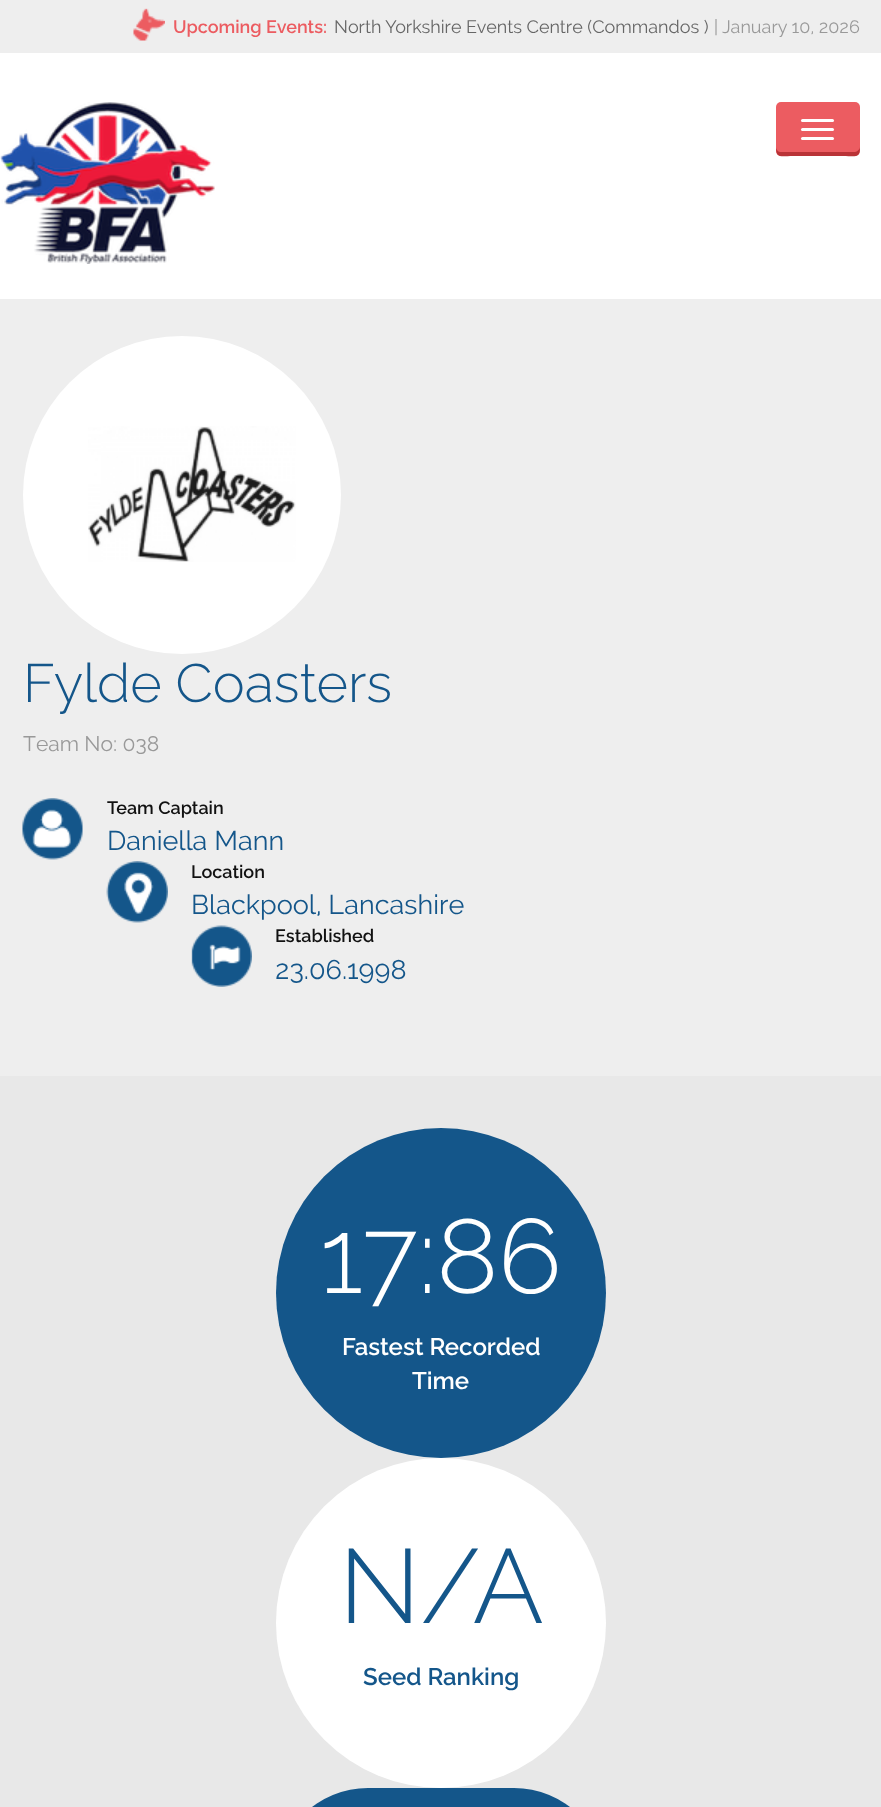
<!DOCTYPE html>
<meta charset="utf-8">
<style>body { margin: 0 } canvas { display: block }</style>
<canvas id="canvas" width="881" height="1807"></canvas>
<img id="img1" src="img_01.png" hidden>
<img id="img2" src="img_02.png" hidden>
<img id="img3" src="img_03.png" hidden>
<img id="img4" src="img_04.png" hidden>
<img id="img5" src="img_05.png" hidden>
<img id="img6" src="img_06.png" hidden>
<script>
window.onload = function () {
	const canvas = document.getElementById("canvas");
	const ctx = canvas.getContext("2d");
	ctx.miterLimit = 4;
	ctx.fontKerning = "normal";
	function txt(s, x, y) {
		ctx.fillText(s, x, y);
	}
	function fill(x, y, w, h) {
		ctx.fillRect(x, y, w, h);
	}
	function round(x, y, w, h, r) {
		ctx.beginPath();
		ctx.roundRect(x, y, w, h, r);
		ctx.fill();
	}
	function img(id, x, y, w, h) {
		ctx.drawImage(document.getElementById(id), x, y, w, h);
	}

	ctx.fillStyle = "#FFFFFF";
	fill(0, 0, 881, 1807);
	ctx.fillStyle = "#EEEEEE";
	fill(0, 0, 881, 53);
	img("img1", 133, 8, 32, 33);
	img("img2", 0, 102, 215, 162);
	ctx.fillStyle = "#EC5C61";
	round(776, 102, 84, 54, 5);
	ctx.fillStyle = "#B93337";
	ctx.beginPath();
	ctx.moveTo(776, 147);
	ctx.bezierCurveTo(776, 159, 781, 156, 793, 156);
	ctx.lineTo(843, 156);
	ctx.bezierCurveTo(855, 156, 860, 159, 860, 147);
	ctx.bezierCurveTo(860, 149, 857, 152, 855, 152);
	ctx.lineTo(780, 152);
	ctx.bezierCurveTo(778, 152, 776, 149, 776, 147);
	ctx.closePath();
	ctx.fill();
	ctx.fillStyle = "#FFFFFF";
	round(801, 119, 33, 3, 1.5);
	round(801, 128, 33, 3, 1.5);
	round(801, 137, 33, 3, 1.5);
	ctx.fillStyle = "#EEEEEE";
	fill(0, 299, 881, 777);
	ctx.fillStyle = "#FFFFFF";
	ctx.beginPath();
	ctx.arc(182, 495, 159, 0, Math.PI * 2);
	ctx.fill();
	img("img3", 88, 426, 208, 136);
	img("img4", 22, 798, 61, 62);
	img("img5", 106, 861, 62, 62);
	img("img6", 191, 925, 61, 62);
	ctx.fillStyle = "#E8E8E8";
	fill(0, 1076, 881, 731);
	ctx.fillStyle = "#14568A";
	ctx.beginPath();
	ctx.arc(441, 1293, 165, 0, Math.PI * 2);
	ctx.fill();
	ctx.fillStyle = "#FFFFFF";
	ctx.beginPath();
	ctx.arc(441, 1623, 165, 0, Math.PI * 2);
	ctx.fill();
	ctx.fillStyle = "#14568A";
	round(276, 1788, 330, 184, 165);
	ctx.font = "600 18px Raleway";
	ctx.fillStyle = "#EC5C61";
	txt("Upcoming Events:", 173, 33);
	ctx.font = "18px Raleway";
	ctx.fillStyle = "#666666";
	txt("North Yorkshire Events Centre (Commandos )", 334, 33);
	ctx.fillStyle = "#999999";
	txt("|", 714, 33);
	txt("January 10, 2026", 722, 33);
	ctx.font = "300 54px Raleway";
	ctx.fillStyle = "#14568A";
	txt("Fylde Coasters", 23, 702);
	ctx.font = "21px Raleway";
	ctx.fillStyle = "#999999";
	txt("Team No: 038", 23, 751);
	ctx.font = "600 18px Raleway";
	ctx.fillStyle = "#111111";
	txt("Team Captain", 107, 814);
	ctx.font = "27px Raleway";
	ctx.fillStyle = "#14568A";
	txt("Daniella Mann", 107, 850);
	ctx.font = "600 18px Raleway";
	ctx.fillStyle = "#111111";
	txt("Location", 191, 878);
	ctx.font = "27px Raleway";
	ctx.fillStyle = "#14568A";
	txt("Blackpool, Lancashire", 191, 914);
	ctx.font = "600 18px Raleway";
	ctx.fillStyle = "#111111";
	txt("Established", 275, 942);
	ctx.font = "27px Raleway";
	ctx.fillStyle = "#14568A";
	txt("23.06.1998", 275, 979);
	ctx.font = "300 105px Raleway";
	ctx.fillStyle = "#FFFFFF";
	txt("17:86", 320, 1293);
	ctx.font = "600 24px Raleway";
	txt("Fastest Recorded", 342, 1355);
	txt("Time", 412, 1389);
	ctx.font = "300 105px Raleway";
	ctx.fillStyle = "#14568A";
	txt("N/A", 339, 1623);
	ctx.font = "600 24px Raleway";
	txt("Seed Ranking", 363, 1685);
};
</script>
